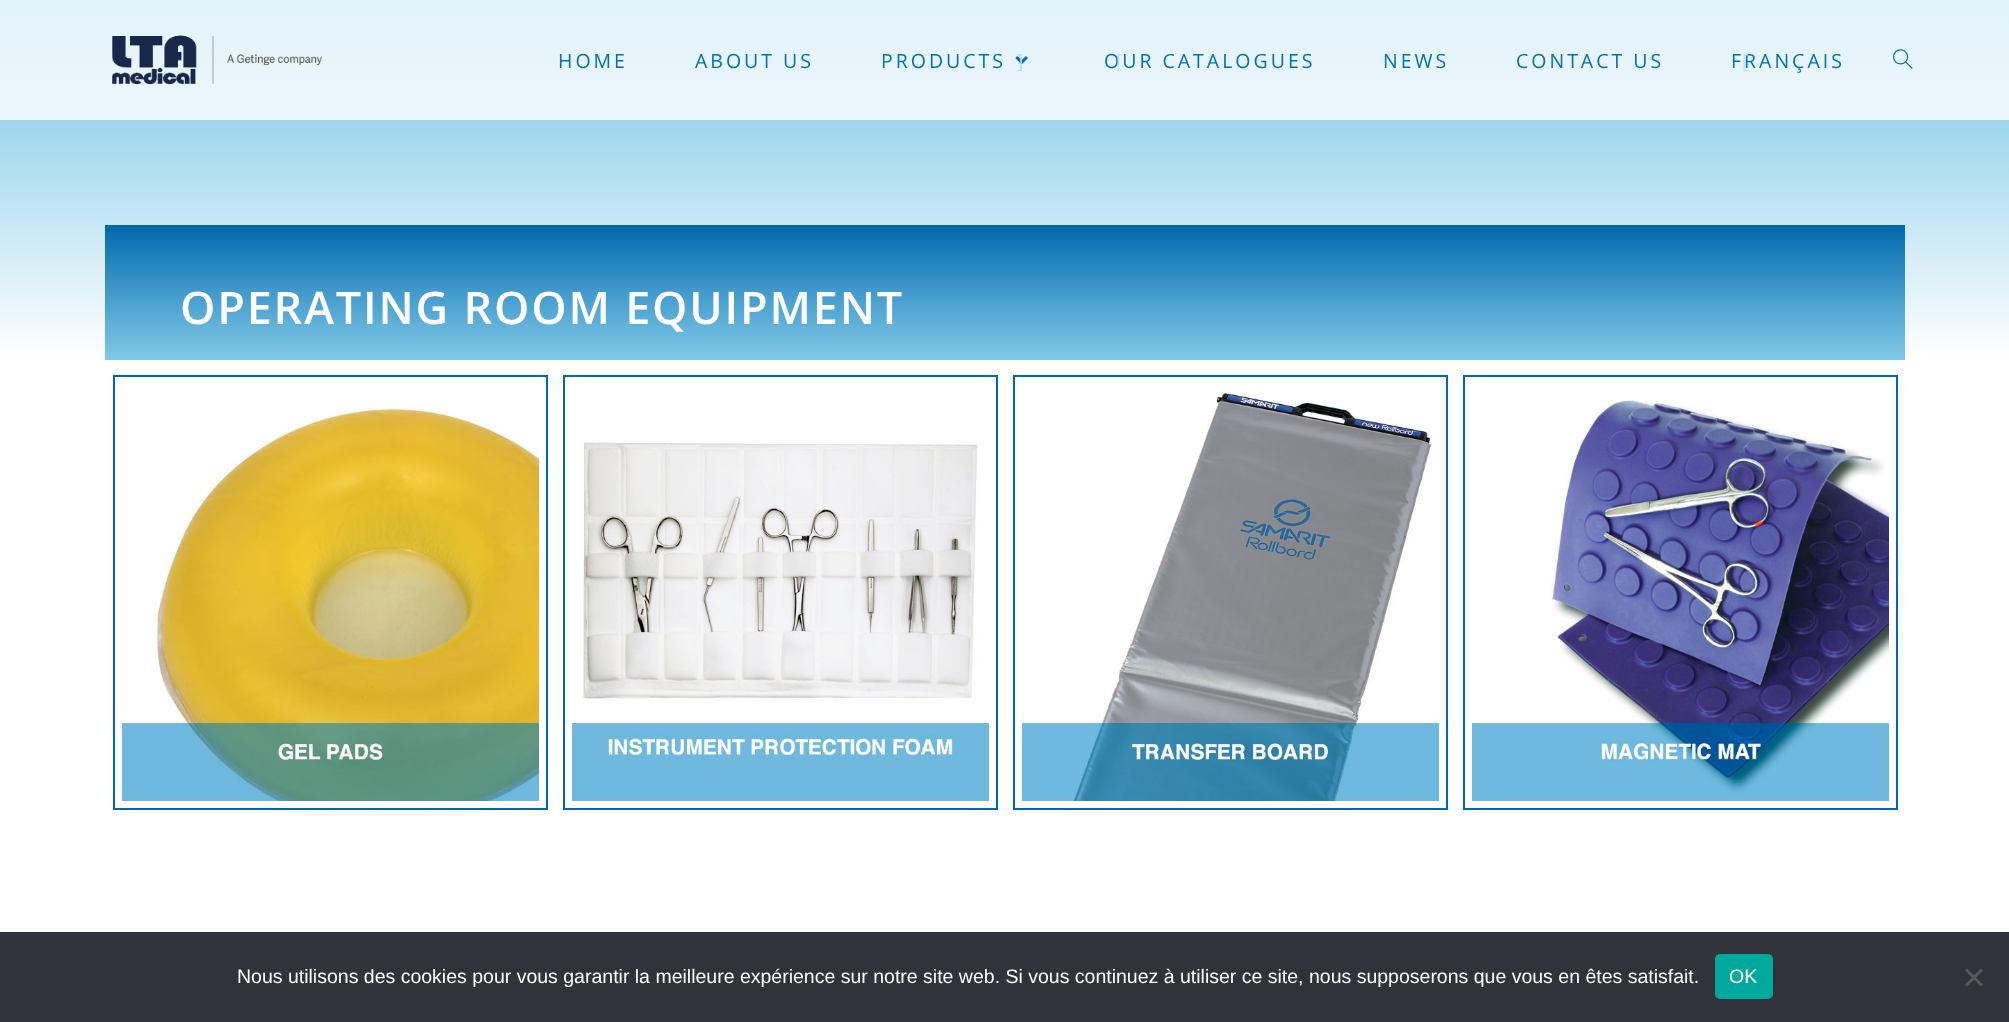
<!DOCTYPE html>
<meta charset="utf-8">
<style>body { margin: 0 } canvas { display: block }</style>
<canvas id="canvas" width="2009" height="1022"></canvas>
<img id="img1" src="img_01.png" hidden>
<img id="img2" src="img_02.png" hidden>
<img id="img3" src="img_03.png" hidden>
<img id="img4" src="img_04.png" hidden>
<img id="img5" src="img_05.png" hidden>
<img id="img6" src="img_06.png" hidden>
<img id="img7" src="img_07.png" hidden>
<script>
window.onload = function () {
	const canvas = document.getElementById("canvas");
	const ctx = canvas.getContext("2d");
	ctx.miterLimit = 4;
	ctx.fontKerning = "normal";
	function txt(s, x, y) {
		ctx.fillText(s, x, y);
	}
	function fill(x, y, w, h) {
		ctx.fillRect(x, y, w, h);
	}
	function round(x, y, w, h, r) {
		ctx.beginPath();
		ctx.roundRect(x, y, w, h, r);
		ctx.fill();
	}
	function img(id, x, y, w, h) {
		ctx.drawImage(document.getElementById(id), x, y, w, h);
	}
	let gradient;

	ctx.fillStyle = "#FFFFFF";
	fill(0, 0, 2009, 1022);
	gradient = ctx.createLinearGradient(1005, 0, 1005, 360);
	gradient.addColorStop(0, "#E2F3FA");
	gradient.addColorStop(1, "#FFFFFF");
	ctx.fillStyle = gradient;
	fill(0, 0, 2009, 120);
	img("img1", 112, 35, 210, 50);
	img("img2", 1015, 56, 13, 9);
	img("img3", 1892, 49, 21, 20);
	gradient = ctx.createLinearGradient(1005, 0, 1005, 360);
	gradient.addColorStop(0, "#6EC1E4");
	gradient.addColorStop(1, "#FFFFFF");
	ctx.fillStyle = gradient;
	fill(0, 120, 2009, 234);
	gradient = ctx.createLinearGradient(1005, 225, 1005, 360);
	gradient.addColorStop(0, "#0068AD");
	gradient.addColorStop(1, "rgba(110, 193, 228, 0.87)");
	ctx.fillStyle = gradient;
	fill(105, 225, 1800, 135);
	ctx.strokeStyle = "#0069AE";
	ctx.lineWidth = 2;
	ctx.strokeRect(114, 376, 433, 433);
	img("img4", 122, 384, 417, 417);
	ctx.strokeRect(564, 376, 433, 433);
	img("img5", 572, 384, 417, 417);
	ctx.strokeRect(1014, 376, 433, 433);
	img("img6", 1022, 384, 417, 417);
	ctx.strokeRect(1464, 376, 433, 433);
	img("img7", 1472, 384, 417, 417);
	ctx.fillStyle = "#32323A";
	fill(0, 932, 2009, 90);
	ctx.fillStyle = "#00A99D";
	round(1715, 954, 58, 45, 5);
	ctx.fillStyle = "#59595D";
	ctx.beginPath();
	ctx.moveTo(1981, 968.5);
	ctx.lineTo(1983, 970.5);
	ctx.lineTo(1967, 986.5);
	ctx.lineTo(1965, 984.5);
	ctx.closePath();
	ctx.fill();
	ctx.beginPath();
	ctx.moveTo(1965, 970.5);
	ctx.lineTo(1967, 968.5);
	ctx.lineTo(1983, 984.5);
	ctx.lineTo(1981, 986.5);
	ctx.closePath();
	ctx.fill();
	ctx.letterSpacing = "3px";
	ctx.font = "19.5px Open Sans";
	ctx.fillStyle = "#0071B4";
	txt("HOME", 558, 68);
	txt("ABOUT US", 695, 68);
	txt("PRODUCTS", 881, 68);
	ctx.fillStyle = "#B9DBED";
	txt("]", 1017, 68);
	ctx.fillStyle = "#0071B4";
	txt("OUR CATALOGUES", 1104, 68);
	ctx.fillStyle = "#C5E1F0";
	txt("[", 1116, 68);
	ctx.fillStyle = "#0071B4";
	txt("NEWS", 1383, 68);
	txt("CONTACT US", 1516, 68);
	txt("FRANÇAIS", 1731, 68);
	ctx.fillStyle = "#C5E1F0";
	txt("[", 1742, 68);
	ctx.letterSpacing = "1.8px";
	ctx.font = "600 45px Open Sans";
	ctx.fillStyle = "#FFFFFF";
	txt("OPERATING ROOM EQUIPMENT", 180, 324);
	ctx.letterSpacing = "0px";
	ctx.font = "19.5px Liberation Sans";
	txt("Nous utilisons des cookies pour vous garantir la meilleure expérience sur notre site web. Si vous continuez à utiliser ce site, nous supposerons que vous en êtes satisfait.", 237, 983);
	txt("OK", 1729, 983);
};
</script>
